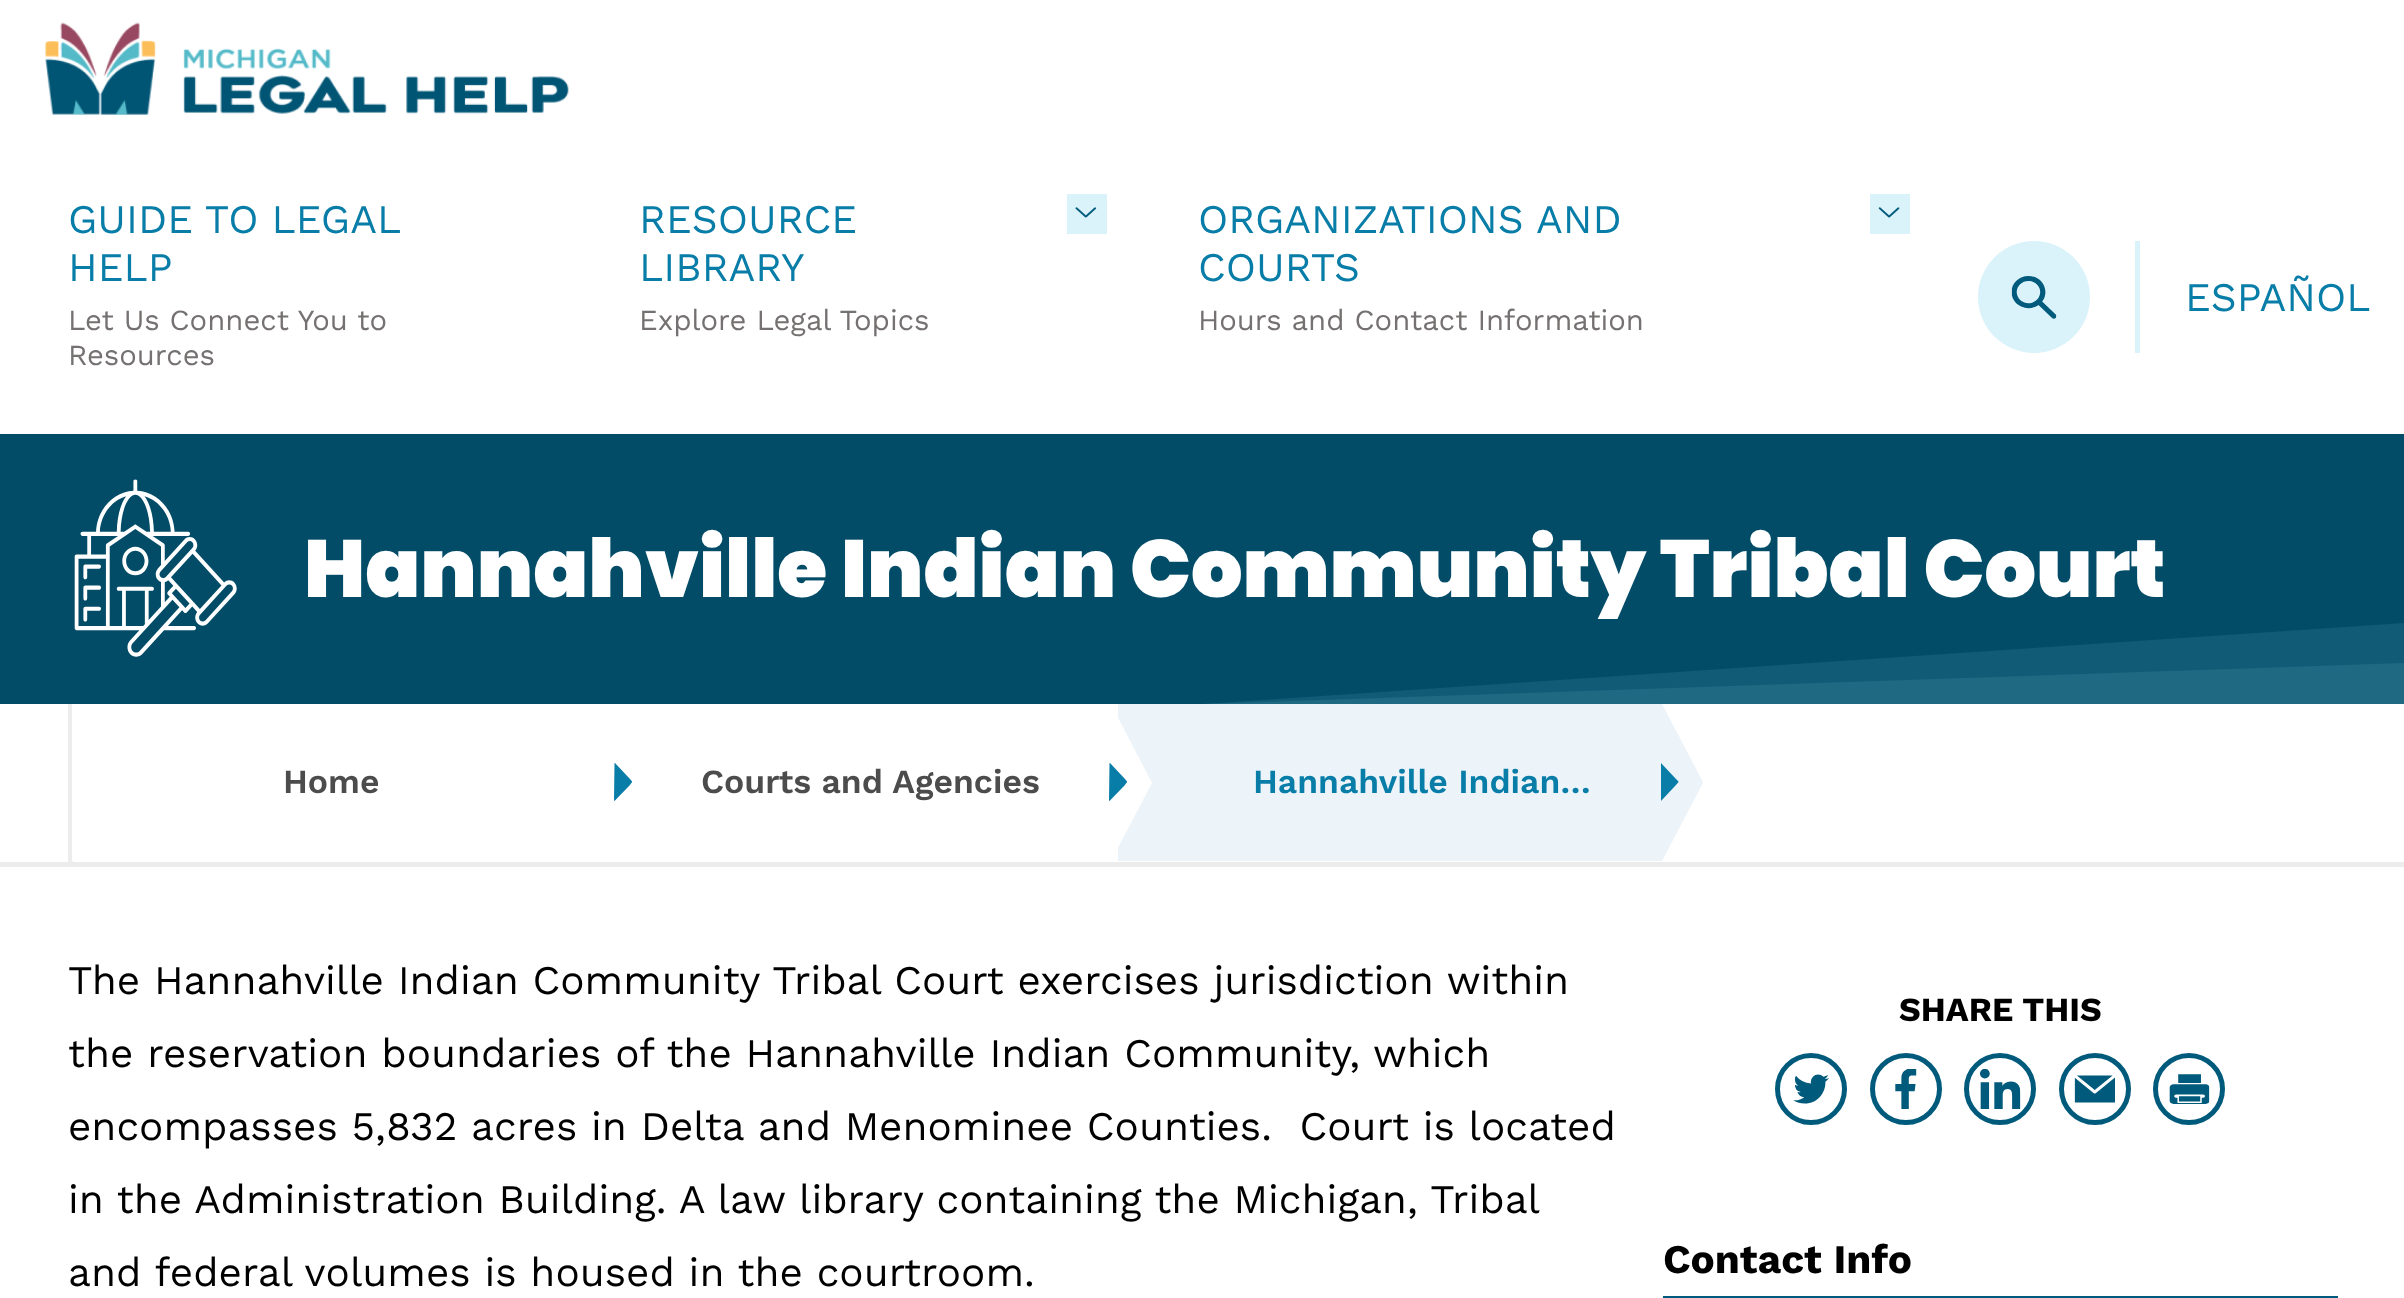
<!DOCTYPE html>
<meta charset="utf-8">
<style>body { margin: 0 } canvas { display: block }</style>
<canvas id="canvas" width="2404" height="1298"></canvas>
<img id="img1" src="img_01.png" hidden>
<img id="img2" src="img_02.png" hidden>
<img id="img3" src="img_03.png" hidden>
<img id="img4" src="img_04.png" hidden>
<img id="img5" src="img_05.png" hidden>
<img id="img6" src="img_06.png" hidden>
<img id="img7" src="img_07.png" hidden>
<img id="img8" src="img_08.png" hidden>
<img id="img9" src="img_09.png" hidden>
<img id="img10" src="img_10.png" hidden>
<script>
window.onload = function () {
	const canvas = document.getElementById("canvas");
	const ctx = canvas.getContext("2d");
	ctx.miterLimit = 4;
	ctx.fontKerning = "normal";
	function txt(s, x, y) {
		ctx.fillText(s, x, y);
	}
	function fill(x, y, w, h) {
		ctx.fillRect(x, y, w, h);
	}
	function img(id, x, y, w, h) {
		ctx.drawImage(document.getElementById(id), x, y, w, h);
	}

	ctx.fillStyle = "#FFFFFF";
	fill(0, 0, 2404, 1298);
	img("img1", 45, 22, 524, 93);
	ctx.fillStyle = "#DAF2FA";
	fill(1067, 194, 40, 40);
	img("img2", 1075, 207, 22, 11);
	fill(1870, 194, 40, 40);
	img("img3", 1878, 207, 22, 11);
	ctx.beginPath();
	ctx.arc(2034, 297, 56, 0, Math.PI * 2);
	ctx.fill();
	img("img4", 2011, 276, 46, 43);
	fill(2135, 241, 5, 112);
	ctx.fillStyle = "#034C68";
	fill(0, 434, 2404, 270);
	img("img5", 74, 479, 163, 178);
	ctx.fillStyle = "#125B76";
	ctx.beginPath();
	ctx.moveTo(1203, 704);
	ctx.lineTo(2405, 623);
	ctx.lineTo(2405, 704);
	ctx.closePath();
	ctx.fill();
	ctx.fillStyle = "#206983";
	ctx.beginPath();
	ctx.moveTo(1203, 704);
	ctx.lineTo(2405, 663);
	ctx.lineTo(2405, 704);
	ctx.closePath();
	ctx.fill();
	ctx.fillStyle = "#ECECEC";
	fill(0, 862, 2404, 5);
	fill(68, 704, 5, 158);
	ctx.fillStyle = "#ECF4F9";
	ctx.beginPath();
	ctx.moveTo(1703, 783);
	ctx.lineTo(1662, 861);
	ctx.lineTo(1118, 861);
	ctx.lineTo(1118, 704);
	ctx.lineTo(1662, 704);
	ctx.lineTo(1703, 782);
	ctx.closePath();
	ctx.fill();
	ctx.fillStyle = "#FFFFFF";
	ctx.beginPath();
	ctx.moveTo(567, 704);
	ctx.lineTo(567, 861);
	ctx.lineTo(1111, 861);
	ctx.lineTo(1152, 783);
	ctx.lineTo(1111, 704);
	ctx.closePath();
	ctx.fill();
	ctx.beginPath();
	ctx.moveTo(72, 704);
	ctx.lineTo(72, 861);
	ctx.lineTo(616, 861);
	ctx.lineTo(657, 783);
	ctx.lineTo(616, 704);
	ctx.closePath();
	ctx.fill();
	ctx.fillStyle = "#087DA8";
	ctx.beginPath();
	ctx.moveTo(614, 800.5);
	ctx.lineTo(614.5, 801);
	ctx.lineTo(629.5, 785.5);
	ctx.bezierCurveTo(633, 781, 633, 782.5, 629.5, 778.5);
	ctx.lineTo(615, 763);
	ctx.lineTo(614.5, 763);
	ctx.closePath();
	ctx.fill();
	ctx.beginPath();
	ctx.moveTo(1109, 800.5);
	ctx.lineTo(1109.5, 801);
	ctx.lineTo(1124.5, 785.5);
	ctx.bezierCurveTo(1128, 781, 1128, 782.5, 1124.5, 778.5);
	ctx.lineTo(1110, 763);
	ctx.lineTo(1109.5, 763);
	ctx.closePath();
	ctx.fill();
	ctx.save();
	ctx.beginPath();
	ctx.rect(1661, 763, 18, 38);
	ctx.clip();
	ctx.beginPath();
	ctx.moveTo(1660.5, 800.5);
	ctx.lineTo(1661, 801);
	ctx.lineTo(1675.5, 785.5);
	ctx.bezierCurveTo(1679.5, 781, 1679.5, 782.5, 1675.5, 778.5);
	ctx.lineTo(1661, 763);
	ctx.lineTo(1660.5, 763);
	ctx.closePath();
	ctx.fill();
	ctx.restore();
	ctx.beginPath();
	ctx.arc(1811, 1089, 33.5, 0, Math.PI * 2);
	ctx.strokeStyle = "#005A7C";
	ctx.lineWidth = 5;
	ctx.stroke();
	img("img6", 1793, 1074, 36, 30);
	ctx.beginPath();
	ctx.arc(1906, 1089, 33.5, 0, Math.PI * 2);
	ctx.stroke();
	img("img7", 1895, 1069, 22, 40);
	ctx.beginPath();
	ctx.arc(2000, 1089, 33.5, 0, Math.PI * 2);
	ctx.stroke();
	img("img8", 1980, 1069, 41, 40);
	ctx.beginPath();
	ctx.arc(2095, 1089, 33.5, 0, Math.PI * 2);
	ctx.stroke();
	img("img9", 2074, 1075, 41, 28);
	ctx.beginPath();
	ctx.arc(2189, 1089, 33.5, 0, Math.PI * 2);
	ctx.stroke();
	img("img10", 2169, 1074, 41, 30);
	ctx.fillStyle = "#005A7C";
	fill(1663, 1296, 675, 2);
	ctx.wordSpacing = "-1px";
	ctx.font = "40.5px Work Sans";
	ctx.fillStyle = "#087DA8";
	txt("GUIDE TO LEGAL", 68, 233);
	ctx.wordSpacing = "0px";
	txt("HELP", 68, 281);
	ctx.font = "29.25px Work Sans";
	ctx.fillStyle = "#757171";
	txt("Let Us Connect You to", 68, 330);
	txt("Resources", 68, 365);
	ctx.font = "40.5px Work Sans";
	ctx.fillStyle = "#087DA8";
	txt("RESOURCE", 639, 233);
	txt("LIBRARY", 639, 281);
	ctx.font = "29.25px Work Sans";
	ctx.fillStyle = "#757171";
	txt("Explore Legal Topics", 639, 330);
	ctx.font = "40.5px Work Sans";
	ctx.fillStyle = "#087DA8";
	txt("ORGANIZATIONS AND", 1198, 233);
	txt("COURTS", 1198, 281);
	ctx.font = "29.25px Work Sans";
	ctx.fillStyle = "#757171";
	txt("Hours and Contact Information", 1198, 330);
	ctx.font = "40.5px Work Sans";
	ctx.fillStyle = "#087DA8";
	txt("ESPAÑOL", 2185, 311);
	ctx.font = "900 81px Poppins";
	ctx.fillStyle = "#FFFFFF";
	txt("Hannahville Indian Community Tribal Court", 304, 597);
	ctx.font = "600 33.75px Work Sans";
	ctx.fillStyle = "#4C4C4C";
	txt("Home", 283, 793);
	txt("Courts and Agencies", 701, 793);
	ctx.fillStyle = "#087DA8";
	txt("Hannahville Indian…", 1253, 793);
	ctx.font = "40.5px Work Sans";
	ctx.fillStyle = "#000000";
	txt("The Hannahville Indian Community Tribal Court exercises jurisdiction within", 68, 994);
	txt("the reservation boundaries of the Hannahville Indian Community, which", 68, 1067);
	txt("encompasses 5,832 acres in Delta and Menominee Counties.  Court is located", 68, 1140);
	ctx.wordSpacing = "-0.1px";
	txt("in the Administration Building. A law library containing the Michigan, Tribal", 68, 1213);
	ctx.wordSpacing = "0px";
	txt("and federal volumes is housed in the courtroom.", 68, 1286);
	ctx.font = "bold 33.75px Work Sans";
	txt("SHARE THIS", 1899, 1021);
	ctx.font = "bold 40.5px Work Sans";
	txt("Contact Info", 1663, 1273);
};
</script>
